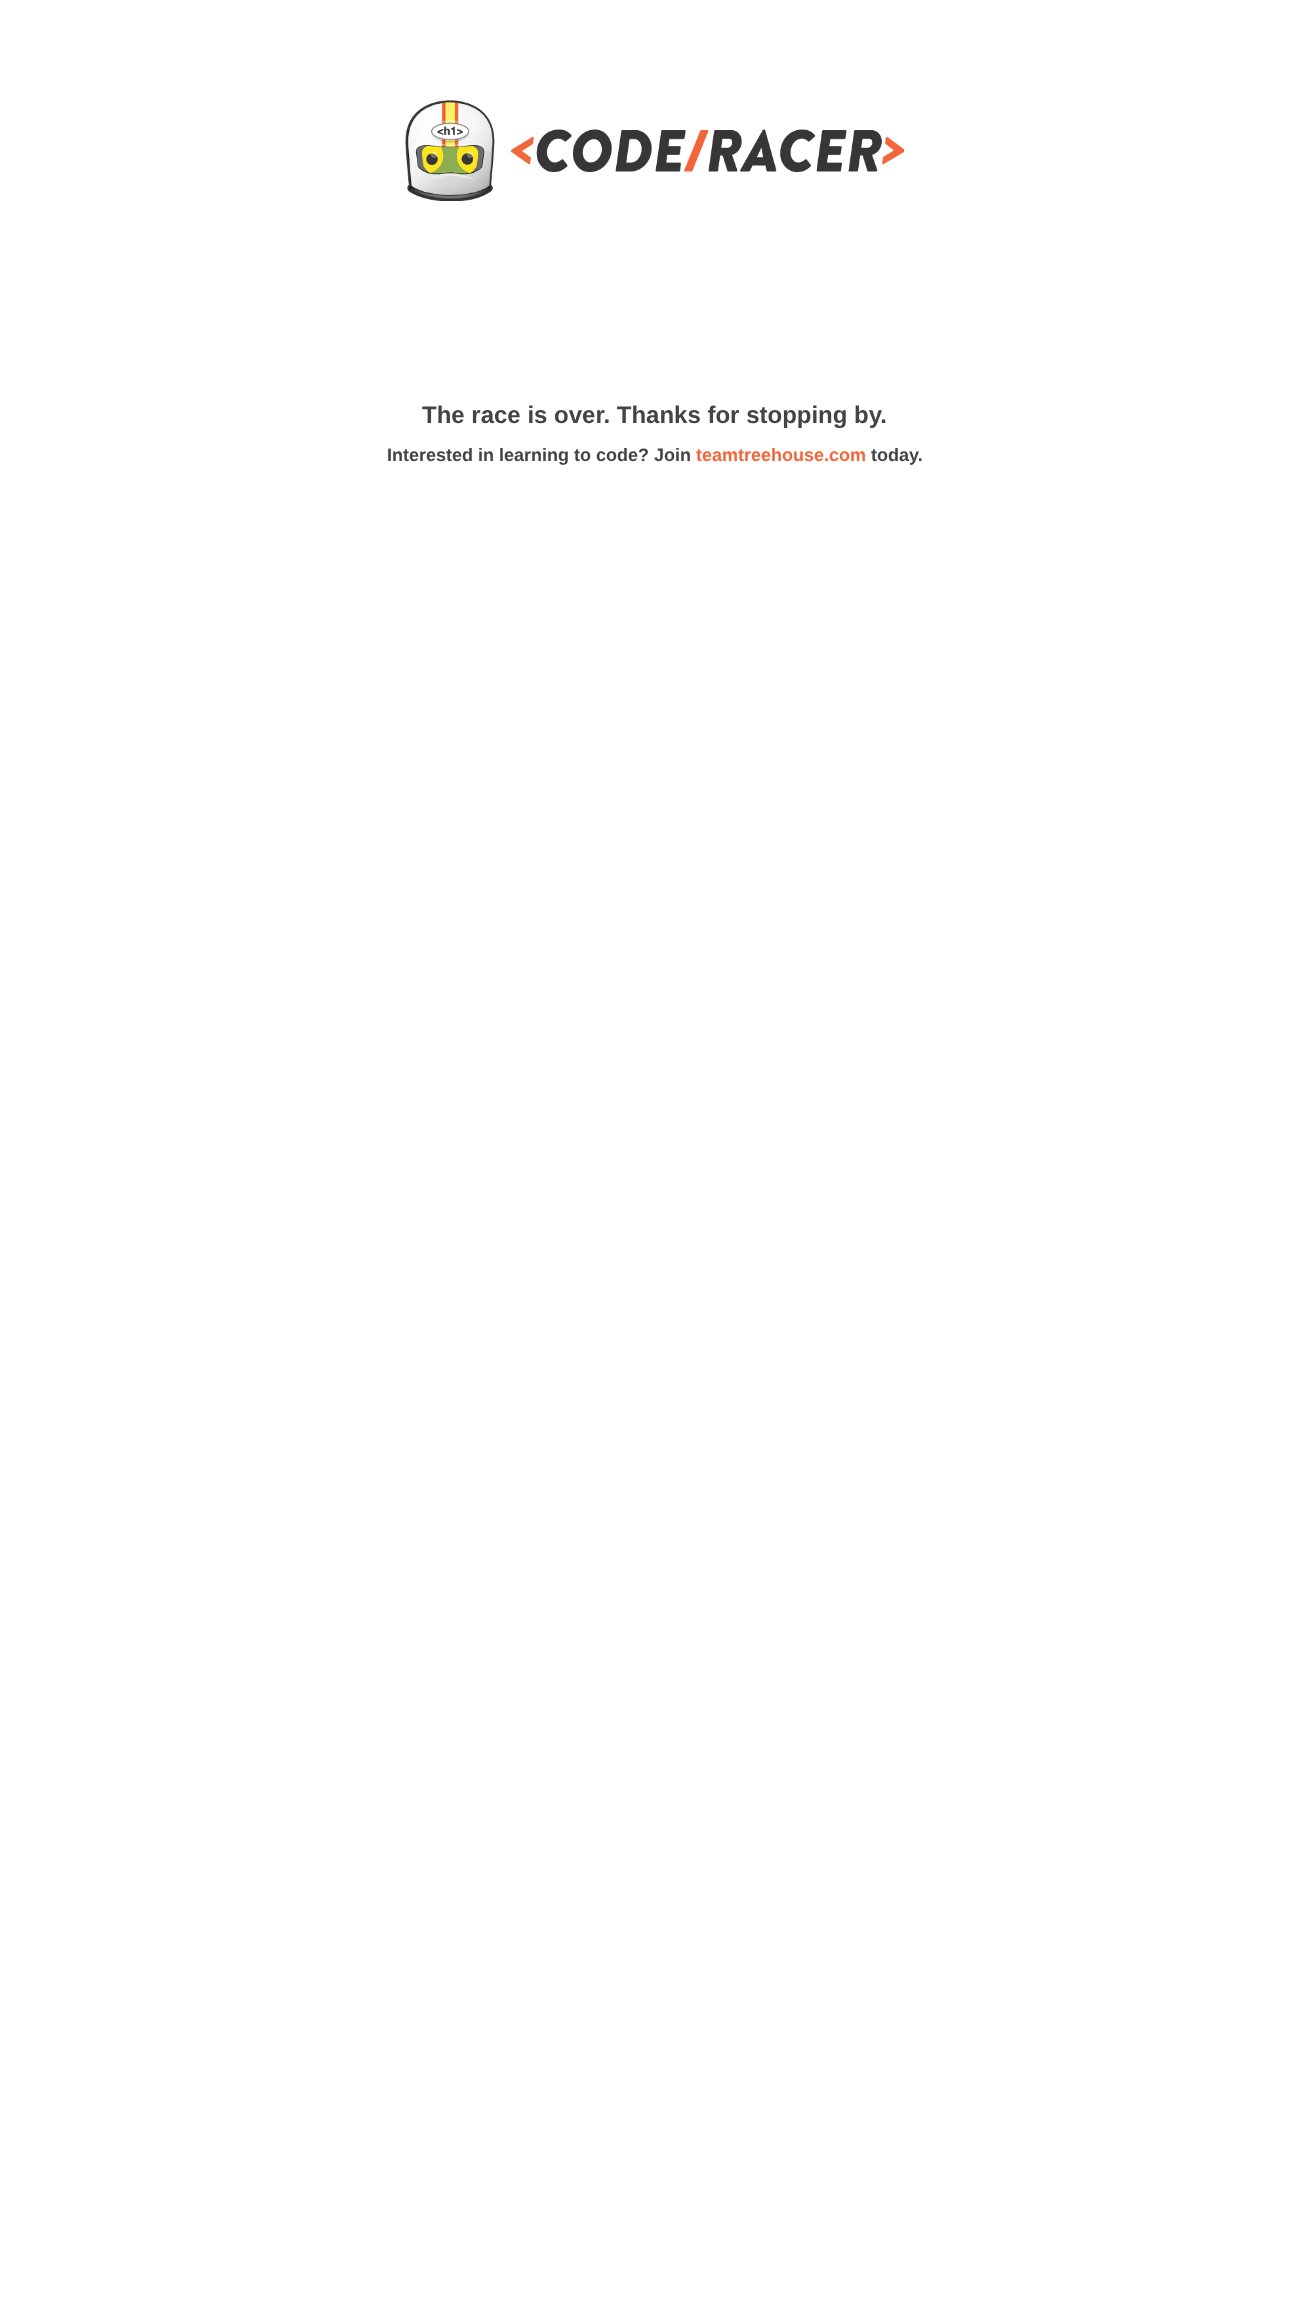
<!DOCTYPE html>
<meta charset="utf-8">
<style>body { margin: 0 } canvas { display: block }</style>
<canvas id="canvas" width="1309" height="2298"></canvas>
<img id="img1" src="img_01.png" hidden>
<script>
window.onload = function () {
	const canvas = document.getElementById("canvas");
	const ctx = canvas.getContext("2d");
	ctx.miterLimit = 4;
	ctx.fontKerning = "normal";
	function txt(s, x, y) {
		ctx.fillText(s, x, y);
	}
	function fill(x, y, w, h) {
		ctx.fillRect(x, y, w, h);
	}
	function img(id, x, y, w, h) {
		ctx.drawImage(document.getElementById(id), x, y, w, h);
	}

	ctx.fillStyle = "#FFFFFF";
	fill(0, 0, 1309, 2298);
	img("img1", 405, 100, 499, 101);
	ctx.font = "bold 24px Liberation Sans";
	ctx.fillStyle = "#444444";
	txt("The race is over. Thanks for stopping by.", 422, 423);
	ctx.font = "bold 18px Liberation Sans";
	txt("Interested in learning to code? Join", 387, 461);
	ctx.fillStyle = "#F2673A";
	txt("teamtreehouse.com", 696, 461);
	ctx.fillStyle = "#444444";
	txt("today.", 871, 461);
};
</script>
